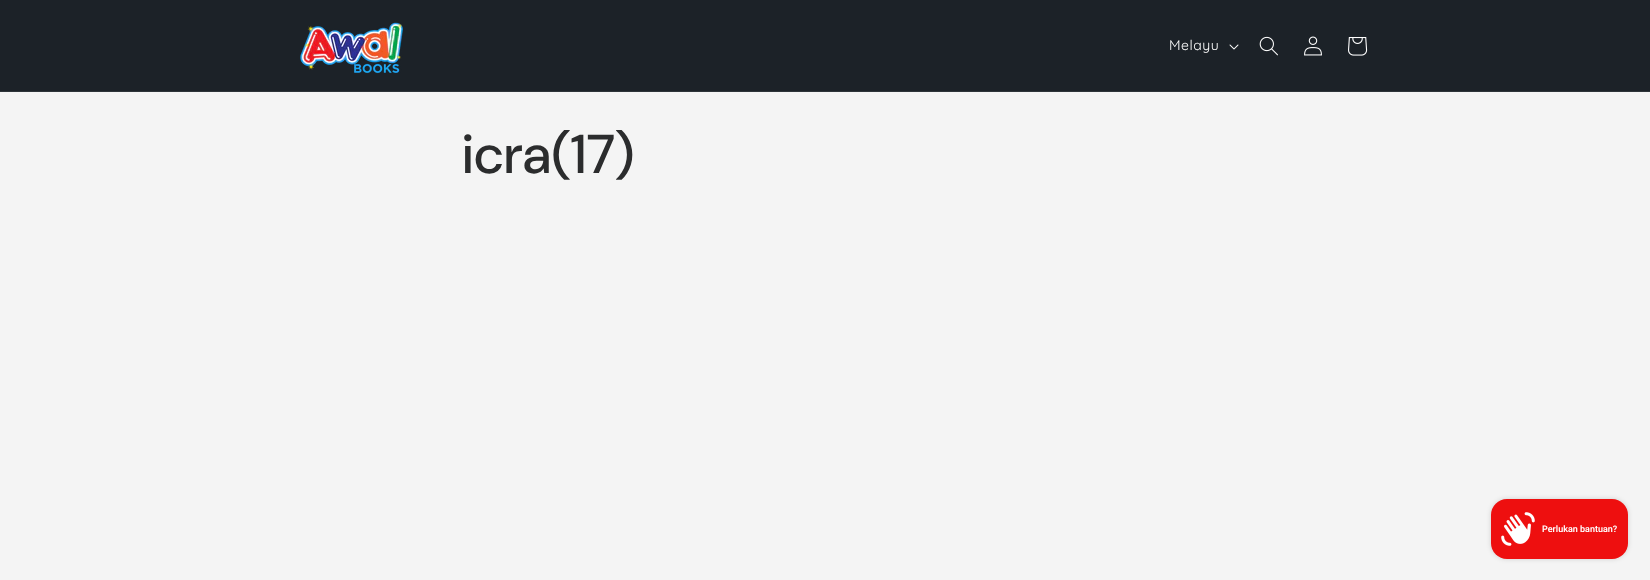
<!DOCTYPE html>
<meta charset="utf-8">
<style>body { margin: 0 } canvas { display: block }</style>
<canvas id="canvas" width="1650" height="580"></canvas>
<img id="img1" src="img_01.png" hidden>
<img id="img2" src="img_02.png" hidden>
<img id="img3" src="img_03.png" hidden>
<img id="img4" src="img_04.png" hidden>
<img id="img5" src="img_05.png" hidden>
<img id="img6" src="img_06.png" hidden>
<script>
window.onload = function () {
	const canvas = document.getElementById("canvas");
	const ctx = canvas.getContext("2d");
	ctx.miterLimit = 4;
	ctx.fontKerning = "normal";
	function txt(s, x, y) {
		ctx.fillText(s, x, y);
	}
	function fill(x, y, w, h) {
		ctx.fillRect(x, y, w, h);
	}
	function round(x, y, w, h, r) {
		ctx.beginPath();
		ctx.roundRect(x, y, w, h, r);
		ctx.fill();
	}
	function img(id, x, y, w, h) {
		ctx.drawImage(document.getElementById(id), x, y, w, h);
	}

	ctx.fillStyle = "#F4F4F4";
	fill(0, 0, 1650, 580);
	ctx.fillStyle = "#1C2228";
	fill(0, 0, 1650, 91);
	ctx.fillStyle = "#2E3439";
	fill(0, 91, 1650, 1);
	img("img1", 300, 22, 103, 52);
	img("img2", 1229, 44, 10, 6);
	img("img3", 1259, 36, 19, 20);
	img("img4", 1304, 36, 18, 20);
	img("img5", 1348, 37, 20, 19);
	ctx.fillStyle = "rgba(0, 0, 0, 0.15)";
	ctx.filter = "blur(2.5px)";
	ctx.beginPath();
	ctx.roundRect(1491, 499, 137, 60, 16);
	ctx.fill();
	ctx.filter = "none";
	ctx.fillStyle = "#EE0F0F";
	round(1491, 499, 137, 60, 16);
	img("img6", 1501, 512, 34, 34);
	ctx.letterSpacing = "0.5px";
	ctx.font = "14px Quicksand";
	ctx.fillStyle = "#FFFFFF";
	txt("Melayu", 1169, 50);
	ctx.letterSpacing = "0.75px";
	ctx.font = "500 54.5px DM Sans";
	ctx.fillStyle = "#2B2C2D";
	txt("icra(17)", 462, 173);
	ctx.letterSpacing = "0px";
	ctx.font = "600 9px Roboto";
	ctx.fillStyle = "#FFFFFF";
	txt("Perlukan bantuan?", 1542, 532);
};
</script>
